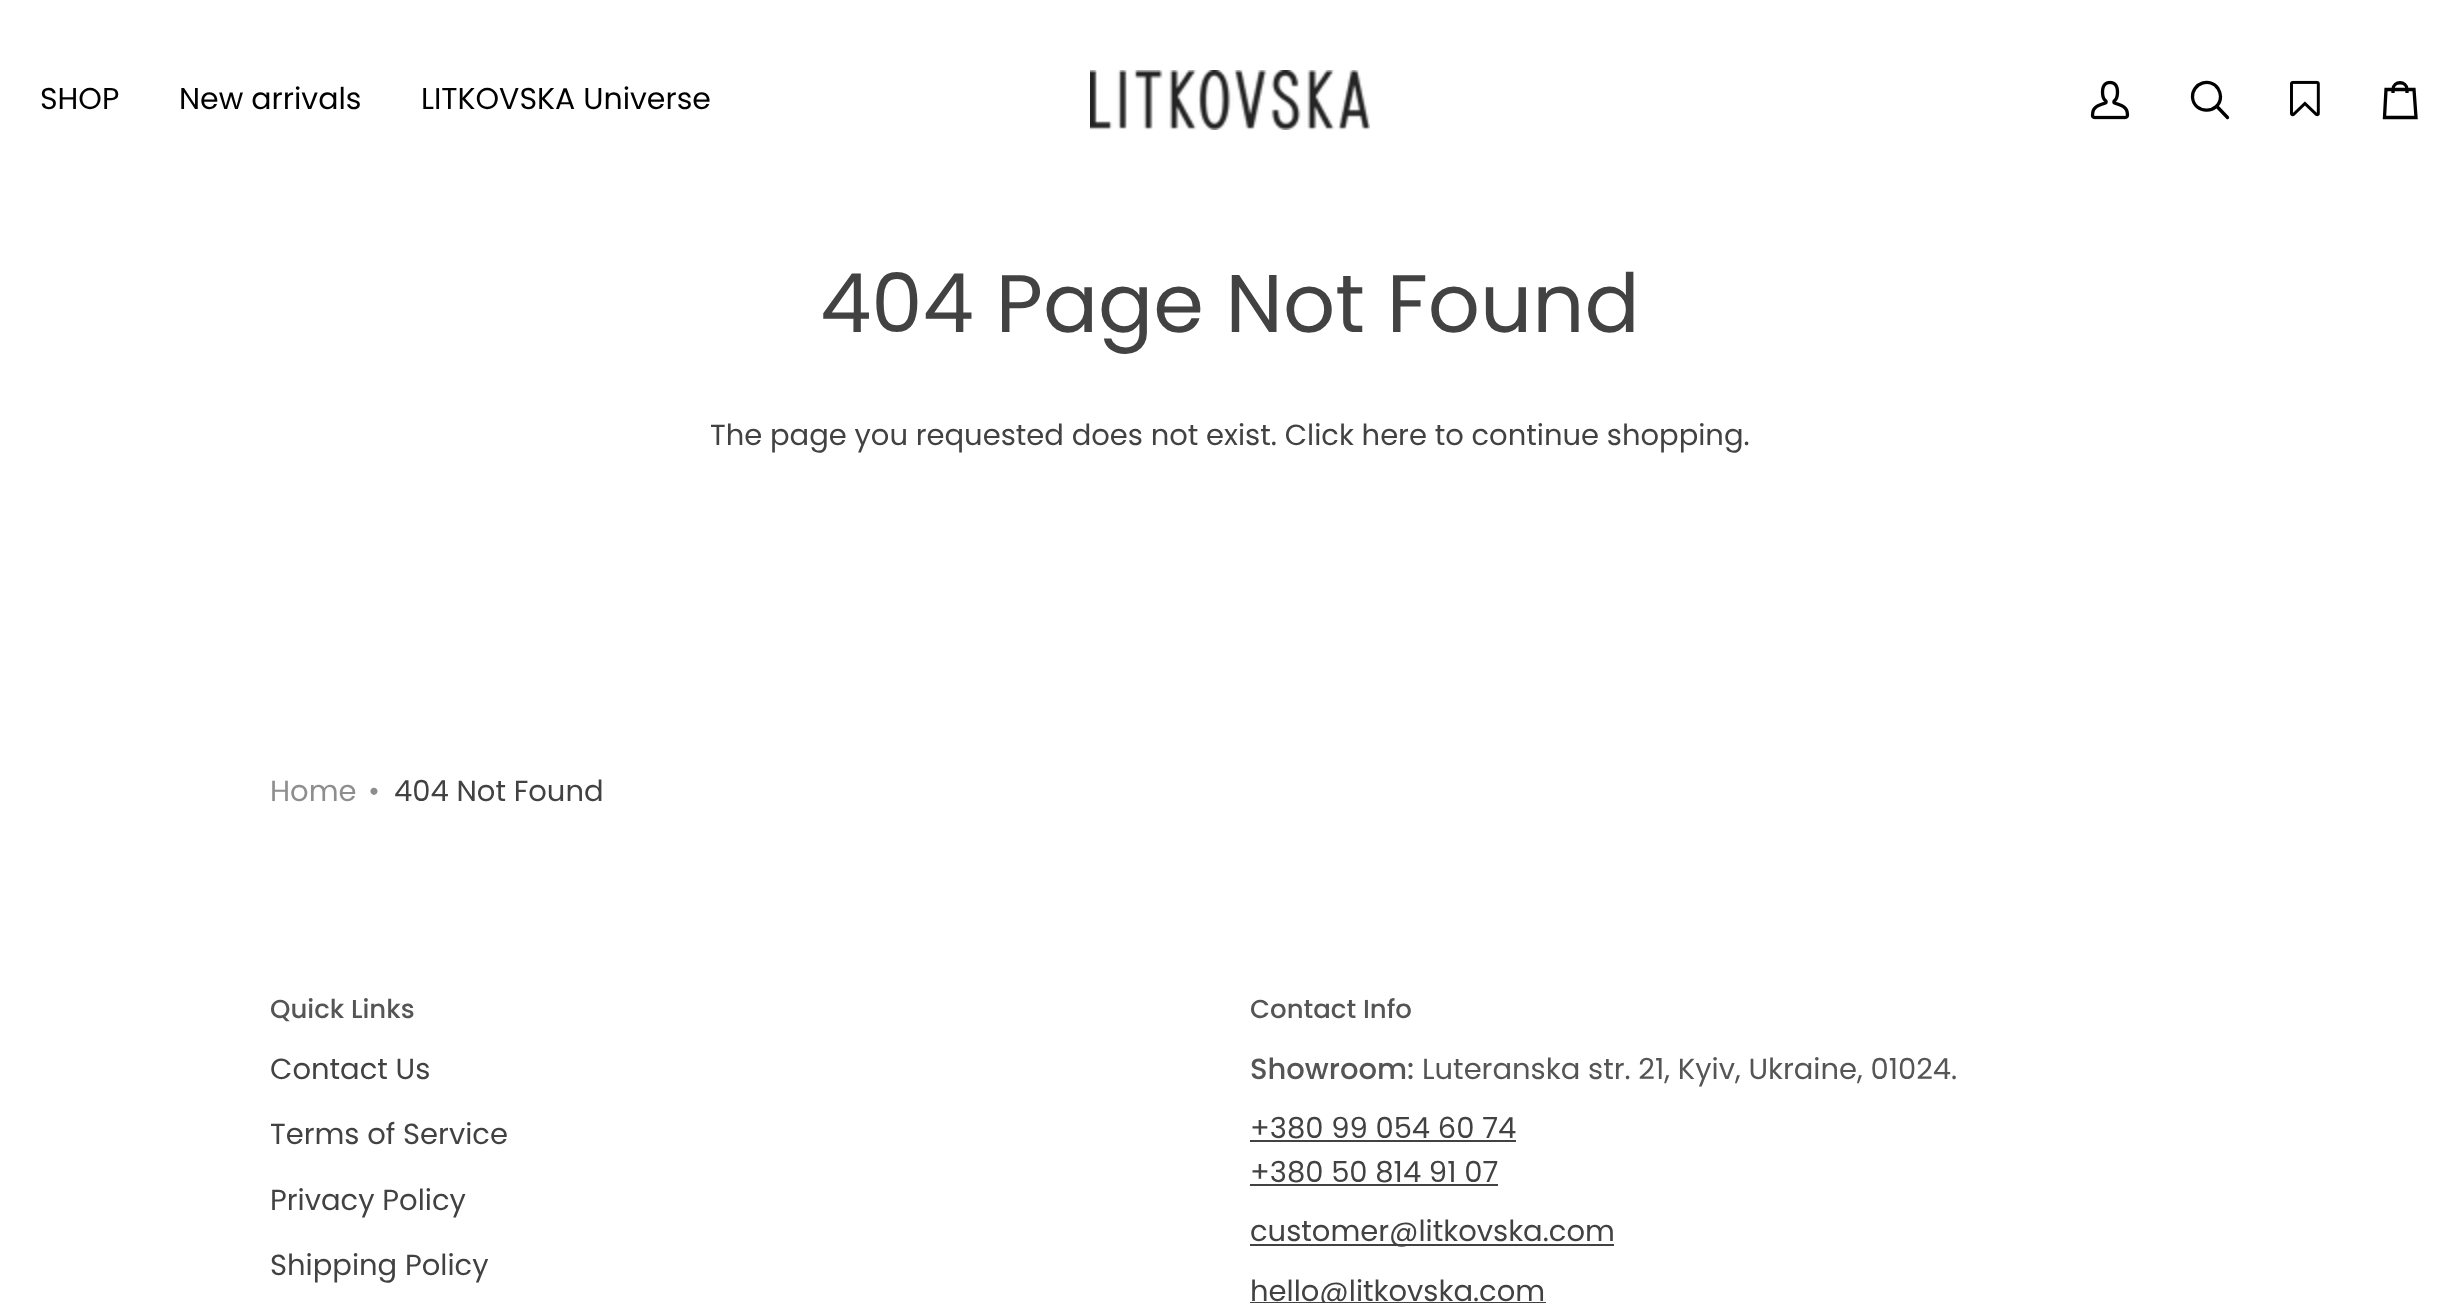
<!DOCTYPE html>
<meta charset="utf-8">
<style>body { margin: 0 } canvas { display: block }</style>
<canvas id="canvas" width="2459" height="1303"></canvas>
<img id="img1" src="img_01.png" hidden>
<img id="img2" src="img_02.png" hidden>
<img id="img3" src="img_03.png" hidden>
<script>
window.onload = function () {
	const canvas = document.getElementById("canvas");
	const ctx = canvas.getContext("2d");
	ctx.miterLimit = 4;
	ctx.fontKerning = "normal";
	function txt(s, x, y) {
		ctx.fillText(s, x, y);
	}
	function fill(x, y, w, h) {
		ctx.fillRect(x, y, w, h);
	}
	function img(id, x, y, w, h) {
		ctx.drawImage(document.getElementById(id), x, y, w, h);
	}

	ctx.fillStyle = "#FFFFFF";
	fill(0, 0, 2459, 1303);
	img("img1", 1090, 70, 280, 60);
	img("img2", 2090, 80, 40, 40);
	ctx.beginPath();
	ctx.moveTo(2220.5, 96.5);
	ctx.bezierCurveTo(2220.5, 114, 2193.5, 115, 2192.5, 97);
	ctx.bezierCurveTo(2192, 83, 2210.5, 77, 2218, 88.5);
	ctx.bezierCurveTo(2219.5, 91, 2220.5, 93.5, 2220.5, 96.5);
	ctx.closePath();
	ctx.moveTo(2227.5, 117.5);
	ctx.lineTo(2216.5, 106);
	ctx.closePath();
	ctx.strokeStyle = "#000000";
	ctx.lineWidth = 3.3;
	ctx.lineCap = "round";
	ctx.lineJoin = "round";
	ctx.stroke();
	img("img3", 2290, 80, 30, 37);
	ctx.beginPath();
	ctx.moveTo(2407, 93);
	ctx.lineTo(2407, 89.5);
	ctx.lineTo(2414, 89.5);
	ctx.lineTo(2416, 117.5);
	ctx.lineTo(2384.5, 117.5);
	ctx.lineTo(2386, 89.5);
	ctx.lineTo(2393, 89.5);
	ctx.bezierCurveTo(2393, 80.5, 2407, 80.5, 2407, 89.5);
	ctx.lineTo(2393, 89.5);
	ctx.lineTo(2393, 93);
	ctx.lineCap = "butt";
	ctx.lineJoin = "miter";
	ctx.stroke();
	ctx.fillStyle = "#424242";
	fill(1250, 1140, 266, 2);
	fill(1250, 1184, 248, 2);
	fill(1250, 1244, 364, 2);
	fill(1250, 1302, 296, 1);
	ctx.font = "30px Poppins";
	ctx.fillStyle = "#000000";
	txt("SHOP", 40, 109);
	txt("New arrivals", 179, 109);
	txt("LITKOVSKA Universe", 421, 109);
	ctx.font = "81.6px Poppins";
	ctx.fillStyle = "#424242";
	txt("404 Page Not Found", 820, 332);
	ctx.font = "29px Poppins";
	txt("The page you requested does not exist. Click here to continue shopping.", 710, 445);
	ctx.fillStyle = "#8E8E8E";
	txt("Home", 270, 801);
	txt("•", 368, 801);
	ctx.fillStyle = "#424242";
	txt("404 Not Found", 394, 801);
	ctx.font = "500 26px Poppins";
	ctx.fillStyle = "#555555";
	txt("Quick Links", 270, 1018);
	ctx.font = "29px Poppins";
	ctx.fillStyle = "#424242";
	txt("Contact Us", 270, 1079);
	txt("Terms of Service", 270, 1144);
	txt("Privacy Policy", 270, 1210);
	txt("Shipping Policy", 270, 1275);
	ctx.font = "500 26px Poppins";
	ctx.fillStyle = "#555555";
	txt("Contact Info", 1250, 1018);
	ctx.font = "500 29px Poppins";
	txt("Showroom:", 1250, 1079);
	ctx.font = "29px Poppins";
	txt("Luteranska str. 21, Kyiv, Ukraine, 01024.", 1422, 1079);
	ctx.fillStyle = "#424242";
	txt("+380 99 054 60 74", 1250, 1138);
	txt("+380 50 814 91 07", 1250, 1182);
	txt("customer@litkovska.com", 1250, 1241);
	txt("hello@litkovska.com", 1250, 1301);
};
</script>
